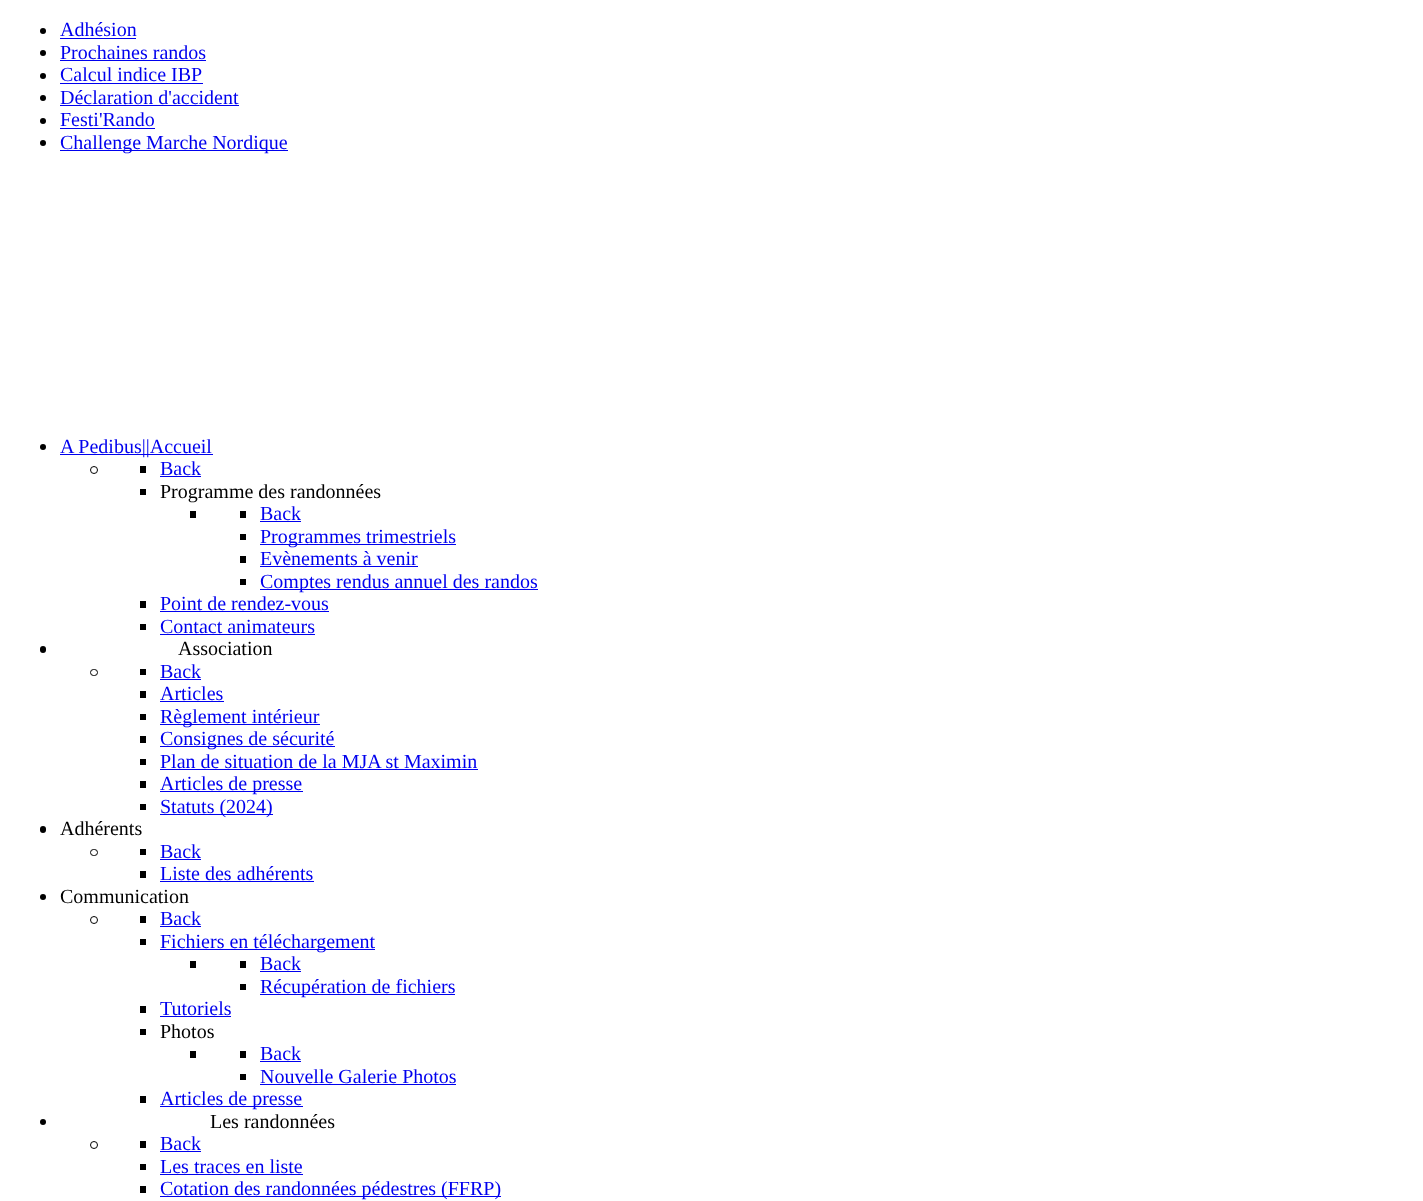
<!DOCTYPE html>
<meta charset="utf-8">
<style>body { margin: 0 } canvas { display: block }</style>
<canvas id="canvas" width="1423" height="1201"></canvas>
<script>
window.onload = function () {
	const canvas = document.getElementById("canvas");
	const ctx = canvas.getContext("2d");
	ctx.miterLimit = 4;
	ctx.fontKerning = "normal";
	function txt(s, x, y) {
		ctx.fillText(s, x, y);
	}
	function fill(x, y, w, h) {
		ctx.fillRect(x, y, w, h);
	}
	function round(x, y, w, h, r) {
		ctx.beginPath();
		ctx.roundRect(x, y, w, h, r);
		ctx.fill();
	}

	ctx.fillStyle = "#FFFFFF";
	fill(0, 0, 1423, 1201);
	ctx.fillStyle = "#000000";
	ctx.beginPath();
	ctx.arc(43, 31, 3, 0, Math.PI * 2);
	ctx.fill();
	ctx.fillStyle = "#0000EE";
	fill(60, 38, 76, 1);
	ctx.fillStyle = "#000000";
	ctx.beginPath();
	ctx.arc(43, 53, 3, 0, Math.PI * 2);
	ctx.fill();
	ctx.fillStyle = "#0000EE";
	fill(60, 60, 146, 1);
	ctx.fillStyle = "#000000";
	ctx.beginPath();
	ctx.arc(43, 76, 3, 0, Math.PI * 2);
	ctx.fill();
	ctx.fillStyle = "#0000EE";
	fill(60, 83, 143, 1);
	ctx.fillStyle = "#000000";
	ctx.beginPath();
	ctx.arc(43, 98, 3, 0, Math.PI * 2);
	ctx.fill();
	ctx.fillStyle = "#0000EE";
	fill(60, 105, 179, 1);
	ctx.fillStyle = "#000000";
	ctx.beginPath();
	ctx.arc(43, 121, 3, 0, Math.PI * 2);
	ctx.fill();
	ctx.fillStyle = "#0000EE";
	fill(60, 128, 95, 1);
	ctx.fillStyle = "#000000";
	ctx.beginPath();
	ctx.arc(43, 143, 3, 0, Math.PI * 2);
	ctx.fill();
	ctx.fillStyle = "#0000EE";
	fill(60, 150, 228, 1);
	ctx.fillStyle = "#000000";
	ctx.beginPath();
	ctx.arc(43, 447, 3, 0, Math.PI * 2);
	ctx.fill();
	ctx.fillStyle = "#0000EE";
	fill(60, 454, 153, 1);
	ctx.beginPath();
	ctx.arc(94, 470, 3.5, 0, Math.PI * 2);
	ctx.strokeStyle = "#000000";
	ctx.stroke();
	ctx.fillStyle = "#000000";
	fill(140, 466, 6, 7);
	ctx.fillStyle = "#0000EE";
	fill(160, 476, 41, 1);
	ctx.fillStyle = "#000000";
	fill(140, 489, 6, 6);
	fill(190, 511, 6, 7);
	fill(240, 511, 6, 7);
	ctx.fillStyle = "#0000EE";
	fill(260, 521, 41, 1);
	ctx.fillStyle = "#000000";
	fill(240, 534, 6, 6);
	ctx.fillStyle = "#0000EE";
	fill(260, 544, 196, 1);
	ctx.fillStyle = "#000000";
	fill(240, 556, 6, 7);
	ctx.fillStyle = "#0000EE";
	fill(260, 566, 158, 1);
	ctx.fillStyle = "#000000";
	fill(240, 579, 6, 6);
	ctx.fillStyle = "#0000EE";
	fill(260, 589, 278, 1);
	ctx.fillStyle = "#000000";
	fill(140, 601, 6, 7);
	ctx.fillStyle = "#0000EE";
	fill(160, 611, 169, 1);
	ctx.fillStyle = "#000000";
	fill(140, 624, 6, 6);
	ctx.fillStyle = "#0000EE";
	fill(160, 634, 155, 1);
	ctx.fillStyle = "#000000";
	round(40, 646, 6, 7, 3);
	ctx.beginPath();
	ctx.roundRect(90.5, 669.5, 7, 6, 3);
	ctx.stroke();
	fill(140, 669, 6, 6);
	ctx.fillStyle = "#0000EE";
	fill(160, 679, 41, 1);
	ctx.fillStyle = "#000000";
	fill(140, 691, 6, 7);
	ctx.fillStyle = "#0000EE";
	fill(160, 701, 64, 1);
	ctx.fillStyle = "#000000";
	fill(140, 714, 6, 6);
	ctx.fillStyle = "#0000EE";
	fill(160, 724, 160, 1);
	ctx.fillStyle = "#000000";
	fill(140, 736, 6, 7);
	ctx.fillStyle = "#0000EE";
	fill(160, 746, 175, 1);
	ctx.fillStyle = "#000000";
	fill(140, 759, 6, 6);
	ctx.fillStyle = "#0000EE";
	fill(160, 769, 318, 1);
	ctx.fillStyle = "#000000";
	fill(140, 781, 6, 7);
	ctx.fillStyle = "#0000EE";
	fill(160, 791, 143, 1);
	ctx.fillStyle = "#000000";
	fill(140, 804, 6, 6);
	ctx.fillStyle = "#0000EE";
	fill(160, 814, 113, 1);
	ctx.fillStyle = "#000000";
	round(40, 826, 6, 7, 3);
	ctx.beginPath();
	ctx.roundRect(90.5, 849.5, 7, 6, 3);
	ctx.stroke();
	fill(140, 849, 6, 6);
	ctx.fillStyle = "#0000EE";
	fill(160, 859, 41, 1);
	ctx.fillStyle = "#000000";
	fill(140, 871, 6, 7);
	ctx.fillStyle = "#0000EE";
	fill(160, 881, 154, 1);
	ctx.fillStyle = "#000000";
	ctx.beginPath();
	ctx.arc(43, 897, 3, 0, Math.PI * 2);
	ctx.fill();
	ctx.beginPath();
	ctx.arc(94, 920, 3.5, 0, Math.PI * 2);
	ctx.stroke();
	fill(140, 916, 6, 7);
	ctx.fillStyle = "#0000EE";
	fill(160, 926, 41, 1);
	ctx.fillStyle = "#000000";
	fill(140, 939, 6, 6);
	ctx.fillStyle = "#0000EE";
	fill(160, 949, 215, 1);
	ctx.fillStyle = "#000000";
	fill(190, 961, 6, 7);
	fill(240, 961, 6, 7);
	ctx.fillStyle = "#0000EE";
	fill(260, 971, 41, 1);
	ctx.fillStyle = "#000000";
	fill(240, 984, 6, 6);
	ctx.fillStyle = "#0000EE";
	fill(260, 994, 195, 1);
	ctx.fillStyle = "#000000";
	fill(140, 1006, 6, 7);
	ctx.fillStyle = "#0000EE";
	fill(160, 1016, 71, 1);
	ctx.fillStyle = "#000000";
	fill(140, 1029, 6, 6);
	fill(190, 1051, 6, 7);
	fill(240, 1051, 6, 7);
	ctx.fillStyle = "#0000EE";
	fill(260, 1061, 41, 1);
	ctx.fillStyle = "#000000";
	fill(240, 1074, 6, 6);
	ctx.fillStyle = "#0000EE";
	fill(260, 1084, 196, 1);
	ctx.fillStyle = "#000000";
	fill(140, 1096, 6, 7);
	ctx.fillStyle = "#0000EE";
	fill(160, 1106, 143, 1);
	ctx.fillStyle = "#000000";
	ctx.beginPath();
	ctx.arc(43, 1122, 3, 0, Math.PI * 2);
	ctx.fill();
	ctx.beginPath();
	ctx.arc(94, 1145, 3.5, 0, Math.PI * 2);
	ctx.stroke();
	fill(140, 1141, 6, 7);
	ctx.fillStyle = "#0000EE";
	fill(160, 1151, 41, 1);
	ctx.fillStyle = "#000000";
	fill(140, 1164, 6, 6);
	ctx.fillStyle = "#0000EE";
	fill(160, 1174, 143, 1);
	ctx.fillStyle = "#000000";
	fill(140, 1186, 6, 7);
	ctx.fillStyle = "#0000EE";
	fill(160, 1196, 341, 1);
	ctx.font = "20px Liberation Serif";
	txt("Adhésion", 60, 36);
	txt("Prochaines randos", 60, 59);
	txt("Calcul indice IBP", 60, 81);
	txt("Déclaration d'accident", 60, 104);
	txt("Festi'Rando", 60, 126);
	txt("Challenge Marche Nordique", 60, 149);
	txt("A Pedibus||Accueil", 60, 453);
	txt("Back", 160, 475);
	ctx.fillStyle = "#000000";
	txt("Programme des randonnées", 160, 498);
	ctx.fillStyle = "#0000EE";
	txt("Back", 260, 520);
	txt("Programmes trimestriels", 260, 543);
	txt("Evènements à venir", 260, 565);
	txt("Comptes rendus annuel des randos", 260, 588);
	txt("Point de rendez-vous", 160, 610);
	txt("Contact animateurs", 160, 633);
	ctx.fillStyle = "#000000";
	txt("Association", 178, 655);
	ctx.fillStyle = "#0000EE";
	txt("Back", 160, 678);
	txt("Articles", 160, 700);
	txt("Règlement intérieur", 160, 723);
	txt("Consignes de sécurité", 160, 745);
	txt("Plan de situation de la MJA st Maximin", 160, 768);
	txt("Articles de presse", 160, 790);
	txt("Statuts (2024)", 160, 813);
	ctx.fillStyle = "#000000";
	txt("Adhérents", 60, 835);
	ctx.fillStyle = "#0000EE";
	txt("Back", 160, 858);
	txt("Liste des adhérents", 160, 880);
	ctx.fillStyle = "#000000";
	txt("Communication", 60, 903);
	ctx.fillStyle = "#0000EE";
	txt("Back", 160, 925);
	txt("Fichiers en téléchargement", 160, 948);
	txt("Back", 260, 970);
	txt("Récupération de fichiers", 260, 993);
	txt("Tutoriels", 160, 1015);
	ctx.fillStyle = "#000000";
	txt("Photos", 160, 1038);
	ctx.fillStyle = "#0000EE";
	txt("Back", 260, 1060);
	txt("Nouvelle Galerie Photos", 260, 1083);
	txt("Articles de presse", 160, 1105);
	ctx.fillStyle = "#000000";
	txt("Les randonnées", 210, 1128);
	ctx.fillStyle = "#0000EE";
	txt("Back", 160, 1150);
	txt("Les traces en liste", 160, 1173);
	txt("Cotation des randonnées pédestres (FFRP)", 160, 1195);
};
</script>
